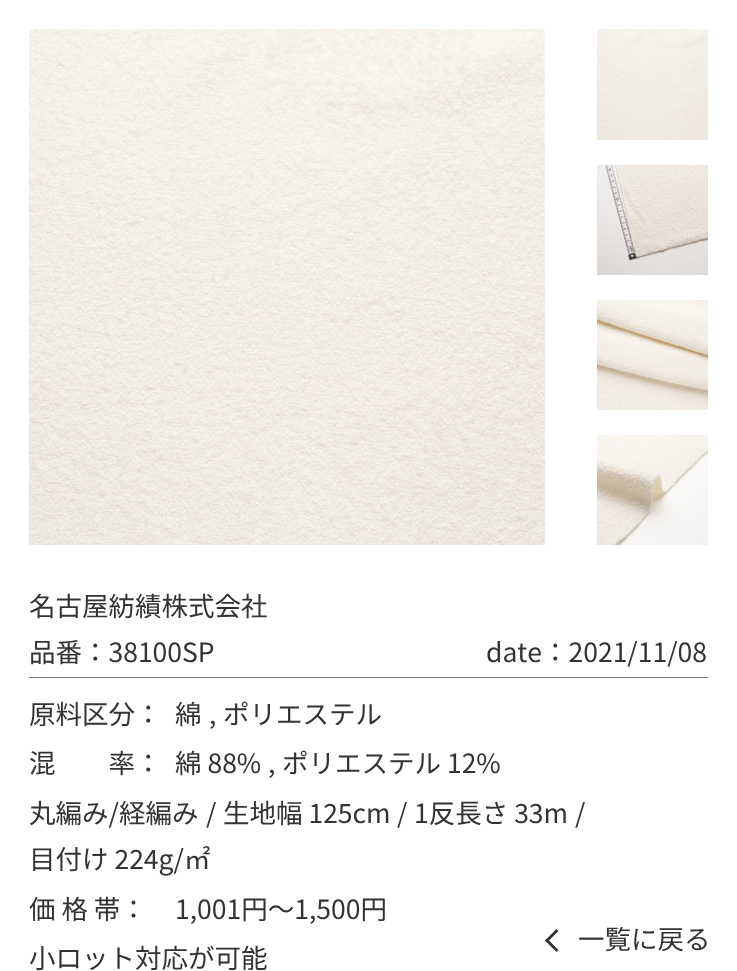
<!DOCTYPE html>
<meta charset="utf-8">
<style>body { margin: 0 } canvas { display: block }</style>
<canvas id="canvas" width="737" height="971"></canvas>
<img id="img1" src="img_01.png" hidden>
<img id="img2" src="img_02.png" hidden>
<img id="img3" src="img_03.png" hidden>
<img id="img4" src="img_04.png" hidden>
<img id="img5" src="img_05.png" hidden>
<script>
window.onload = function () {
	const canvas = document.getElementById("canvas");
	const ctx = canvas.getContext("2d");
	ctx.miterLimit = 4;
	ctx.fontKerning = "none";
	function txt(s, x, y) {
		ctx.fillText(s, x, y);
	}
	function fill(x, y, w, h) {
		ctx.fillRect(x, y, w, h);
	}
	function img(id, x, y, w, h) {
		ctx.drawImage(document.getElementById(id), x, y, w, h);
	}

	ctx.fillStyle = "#FFFFFF";
	fill(0, 0, 737, 971);
	img("img1", 29, 29, 516, 516);
	img("img2", 597, 29, 111, 111);
	img("img3", 597, 165, 111, 110);
	img("img4", 597, 300, 111, 110);
	img("img5", 597, 435, 111, 110);
	ctx.fillStyle = "#777777";
	fill(29, 677, 679, 1);
	ctx.fillStyle = "#333333";
	ctx.beginPath();
	ctx.moveTo(545, 940.5);
	ctx.lineTo(556.5, 929);
	ctx.lineTo(558.5, 931);
	ctx.lineTo(547, 942.5);
	ctx.closePath();
	ctx.fill();
	ctx.beginPath();
	ctx.moveTo(545, 940.5);
	ctx.lineTo(547, 938.5);
	ctx.lineTo(558.5, 950);
	ctx.lineTo(556.5, 952);
	ctx.closePath();
	ctx.fill();
	ctx.font = "26.5px Noto Sans JP";
	txt("名古屋紡績株式会社", 29, 616);
	txt("品番：38100SP", 29, 662);
	txt("date：2021/11/08", 486, 662);
	txt("原料区分：", 29, 724);
	txt("綿", 175, 724);
	txt(",", 209, 724);
	txt("ポリエステル", 223, 724);
	txt("混　　率：", 29, 773);
	txt("綿 88%", 175, 773);
	txt(",", 268, 773);
	txt("ポリエステル 12%", 282, 773);
	txt("丸編み/経編み", 29, 823);
	txt("/", 206, 823);
	txt("生地幅 125cm", 223, 823);
	txt("/", 397, 823);
	txt("1反長さ 33m", 414, 823);
	txt("/", 575, 823);
	txt("目付け 224g/㎡", 29, 869);
	txt("価 格 帯：", 29, 919);
	txt("1,001円～1,500円", 175, 919);
	txt("小ロット対応が可能", 29, 968);
	txt("一覧に戻る", 578, 949);
};
</script>
